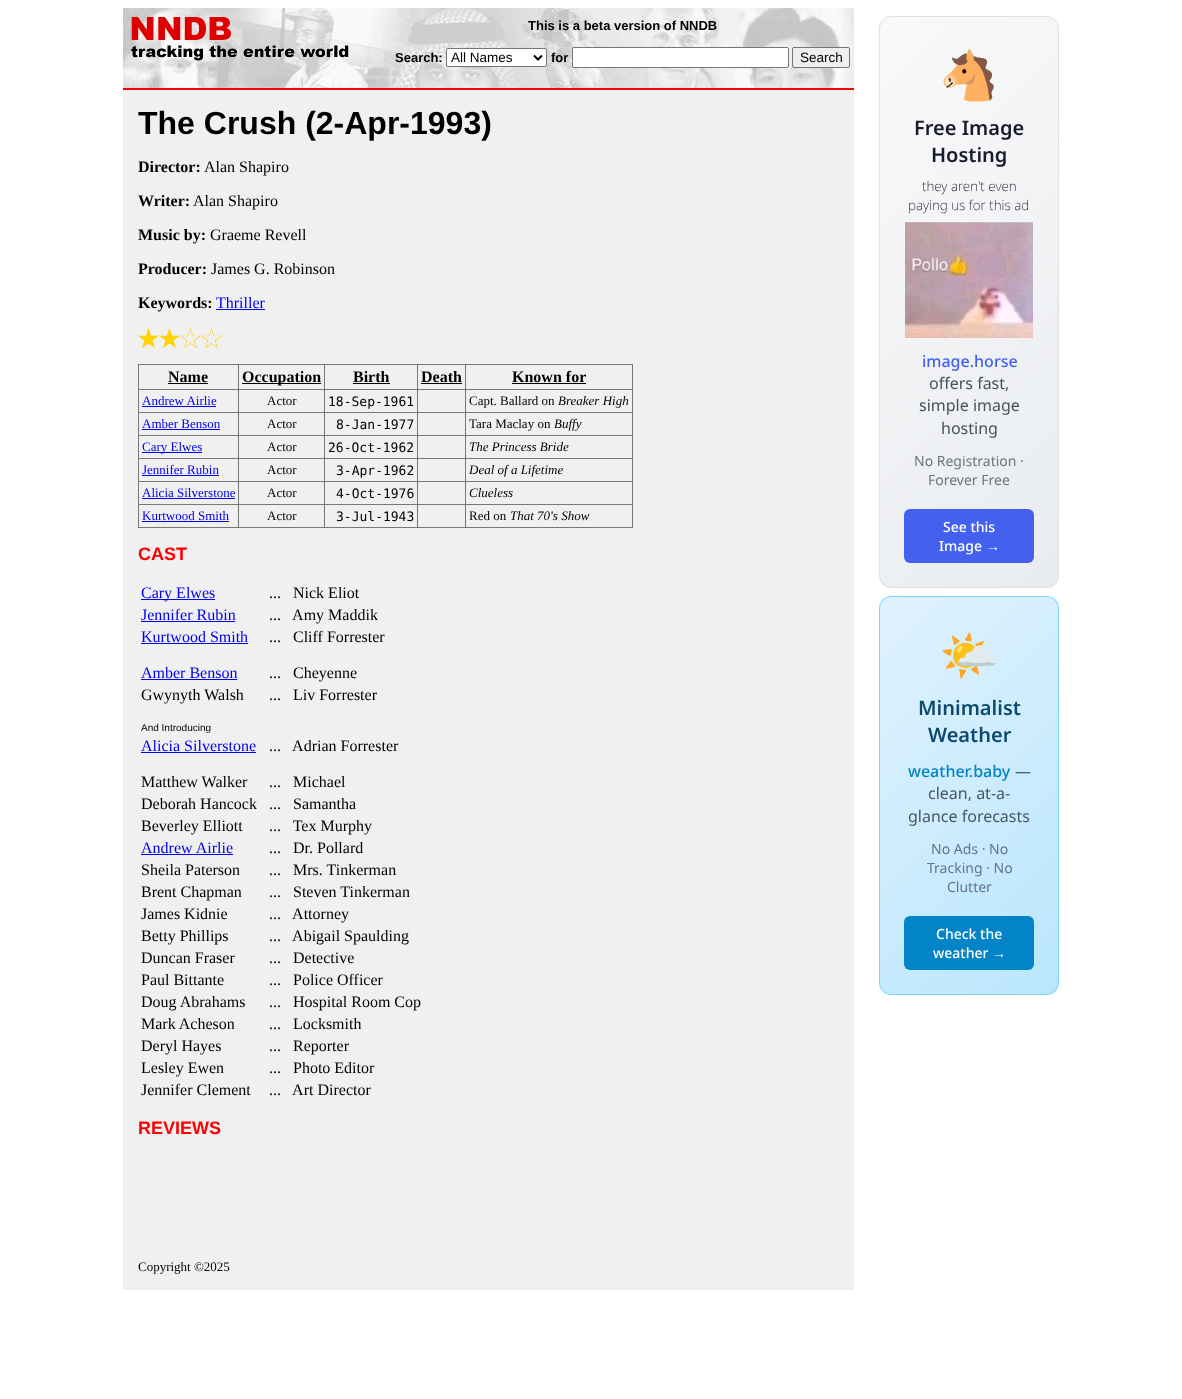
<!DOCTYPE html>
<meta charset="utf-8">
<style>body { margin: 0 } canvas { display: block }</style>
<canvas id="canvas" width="1182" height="1399"></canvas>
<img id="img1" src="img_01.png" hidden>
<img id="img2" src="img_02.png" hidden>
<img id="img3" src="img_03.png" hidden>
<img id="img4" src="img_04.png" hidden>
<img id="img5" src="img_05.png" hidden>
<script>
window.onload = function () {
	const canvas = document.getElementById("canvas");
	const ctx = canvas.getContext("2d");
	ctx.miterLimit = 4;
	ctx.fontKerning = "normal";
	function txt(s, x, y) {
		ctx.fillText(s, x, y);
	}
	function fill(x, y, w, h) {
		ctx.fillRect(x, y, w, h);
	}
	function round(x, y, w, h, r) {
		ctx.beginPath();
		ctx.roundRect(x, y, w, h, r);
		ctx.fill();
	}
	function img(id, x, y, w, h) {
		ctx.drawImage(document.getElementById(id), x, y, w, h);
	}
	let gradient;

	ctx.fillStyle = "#FFFFFF";
	fill(0, 0, 1182, 1399);
	img("img1", 123, 8, 731, 80);
	img("img2", 131, 17, 218, 44);
	ctx.beginPath();
	ctx.roundRect(446.5, 48.5, 100, 18, 1.5);
	ctx.fill();
	ctx.strokeStyle = "#767676";
	ctx.stroke();
	ctx.beginPath();
	ctx.moveTo(534, 55.5);
	ctx.lineTo(538, 59.5);
	ctx.lineTo(542, 55.5);
	ctx.strokeStyle = "#000000";
	ctx.lineWidth = 2;
	ctx.stroke();
	ctx.beginPath();
	ctx.roundRect(572.5, 47.5, 216, 20, 1.5);
	ctx.fill();
	ctx.strokeStyle = "#767676";
	ctx.lineWidth = 1;
	ctx.stroke();
	ctx.fillStyle = "#EFEFEF";
	ctx.beginPath();
	ctx.roundRect(792.5, 47.5, 57, 20, 1.5);
	ctx.fill();
	ctx.stroke();
	ctx.fillStyle = "#FF0000";
	fill(123, 88, 731, 2);
	ctx.fillStyle = "#F0F0F0";
	fill(123, 90, 731, 1200);
	ctx.fillStyle = "#0000EE";
	fill(216, 309, 49, 1);
	img("img3", 138, 328, 21, 20);
	img("img3", 159, 328, 21, 20);
	img("img4", 180, 328, 21, 20);
	img("img4", 201, 328, 21, 20);
	ctx.fillStyle = "#777777";
	fill(138, 364, 495, 1);
	fill(632, 364, 1, 164);
	fill(138, 527, 495, 1);
	fill(138, 364, 1, 164);
	ctx.fillStyle = "#000000";
	fill(168, 383, 40, 1);
	ctx.fillStyle = "#777777";
	fill(465, 389, 168, 1);
	fill(465, 412, 168, 1);
	fill(465, 435, 168, 1);
	fill(465, 458, 168, 1);
	fill(465, 481, 168, 1);
	fill(465, 504, 168, 1);
	fill(465, 504, 1, 24);
	fill(417, 504, 49, 1);
	fill(465, 481, 1, 24);
	fill(417, 481, 49, 1);
	fill(465, 458, 1, 24);
	fill(417, 458, 49, 1);
	fill(465, 435, 1, 24);
	fill(417, 435, 49, 1);
	fill(465, 412, 1, 24);
	fill(417, 412, 49, 1);
	fill(465, 389, 1, 24);
	fill(417, 389, 49, 1);
	fill(417, 504, 1, 24);
	fill(324, 504, 94, 1);
	fill(417, 481, 1, 24);
	fill(324, 481, 94, 1);
	fill(417, 458, 1, 24);
	fill(324, 458, 94, 1);
	fill(417, 435, 1, 24);
	fill(324, 435, 94, 1);
	fill(417, 412, 1, 24);
	fill(324, 412, 94, 1);
	fill(417, 389, 1, 24);
	fill(324, 389, 94, 1);
	fill(324, 504, 1, 24);
	fill(238, 504, 87, 1);
	fill(324, 481, 1, 24);
	fill(238, 481, 87, 1);
	fill(324, 458, 1, 24);
	fill(238, 458, 87, 1);
	fill(324, 435, 1, 24);
	fill(238, 435, 87, 1);
	fill(324, 412, 1, 24);
	fill(238, 412, 87, 1);
	fill(324, 389, 1, 24);
	fill(238, 389, 87, 1);
	fill(238, 504, 1, 24);
	fill(138, 504, 101, 1);
	fill(238, 481, 1, 24);
	fill(138, 481, 101, 1);
	fill(238, 458, 1, 24);
	fill(138, 458, 101, 1);
	fill(238, 435, 1, 24);
	fill(138, 435, 101, 1);
	fill(238, 412, 1, 24);
	fill(138, 412, 101, 1);
	fill(238, 389, 1, 24);
	fill(138, 389, 101, 1);
	fill(238, 364, 1, 26);
	ctx.fillStyle = "#000000";
	fill(242, 383, 79, 1);
	ctx.fillStyle = "#777777";
	fill(324, 364, 1, 26);
	ctx.fillStyle = "#000000";
	fill(353, 383, 37, 1);
	ctx.fillStyle = "#777777";
	fill(417, 364, 1, 26);
	ctx.fillStyle = "#000000";
	fill(421, 383, 41, 1);
	ctx.fillStyle = "#777777";
	fill(465, 364, 1, 26);
	ctx.fillStyle = "#000000";
	fill(512, 383, 74, 1);
	ctx.fillStyle = "#0000EE";
	fill(142, 406, 74, 1);
	fill(142, 429, 78, 1);
	fill(142, 452, 60, 1);
	fill(142, 475, 77, 1);
	fill(142, 498, 93, 1);
	fill(142, 521, 87, 1);
	fill(141, 599, 74, 1);
	fill(141, 621, 94, 1);
	fill(141, 643, 107, 1);
	fill(141, 679, 96, 1);
	fill(141, 752, 115, 1);
	fill(141, 854, 92, 1);
	ctx.save();
	ctx.beginPath();
	ctx.roundRect(879, 16, 180, 572, 12);
	ctx.clip();
	gradient = ctx.createLinearGradient(782, 115, 1156, 489);
	gradient.addColorStop(0, "#F8F9FA");
	gradient.addColorStop(1, "#E9ECEF");
	ctx.fillStyle = gradient;
	fill(880, 17, 178, 570);
	ctx.restore();
	ctx.beginPath();
	ctx.roundRect(879.5, 16.5, 179, 571, 11.5);
	ctx.strokeStyle = "#DEE2E6";
	ctx.stroke();
	img("img5", 905, 222, 128, 116);
	ctx.fillStyle = "#4361EE";
	round(904, 509, 130, 54, 6);
	ctx.save();
	ctx.beginPath();
	ctx.roundRect(879, 596, 180, 399, 12);
	ctx.clip();
	gradient = ctx.createLinearGradient(825, 652, 1113, 939);
	gradient.addColorStop(0, "#E0F2FE");
	gradient.addColorStop(1, "#BAE6FD");
	ctx.fillStyle = gradient;
	fill(880, 597, 178, 397);
	ctx.restore();
	ctx.beginPath();
	ctx.roundRect(879.5, 596.5, 179, 398, 11.5);
	ctx.strokeStyle = "#7DD3FC";
	ctx.stroke();
	ctx.fillStyle = "#0284C7";
	round(904, 916, 130, 54, 6);
	ctx.font = "bold 13px Liberation Sans";
	ctx.fillStyle = "#000000";
	txt("This is a beta version of NNDB", 528, 30);
	txt("Search:", 395, 62);
	ctx.font = "13.5px Liberation Sans";
	txt("All Names", 451, 62);
	ctx.font = "bold 13px Liberation Sans";
	txt("for", 551, 62);
	ctx.font = "13.5px Liberation Sans";
	txt("Search", 800, 62);
	ctx.font = "bold 32px Liberation Sans";
	txt("The Crush (2-Apr-1993)", 138, 134);
	ctx.font = "bold 16px Liberation Serif";
	txt("Director:", 138, 172);
	ctx.font = "16px Liberation Serif";
	txt("Alan Shapiro", 204, 172);
	ctx.font = "bold 16px Liberation Serif";
	txt("Writer:", 138, 206);
	ctx.font = "16px Liberation Serif";
	txt("Alan Shapiro", 193, 206);
	ctx.font = "bold 16px Liberation Serif";
	txt("Music by:", 138, 240);
	ctx.font = "16px Liberation Serif";
	txt("Graeme Revell", 210, 240);
	ctx.font = "bold 16px Liberation Serif";
	txt("Producer:", 138, 274);
	ctx.font = "16px Liberation Serif";
	txt("James G. Robinson", 211, 274);
	ctx.font = "bold 16px Liberation Serif";
	txt("Keywords:", 138, 308);
	ctx.font = "16px Liberation Serif";
	ctx.fillStyle = "#0000EE";
	txt("Thriller", 216, 308);
	ctx.font = "bold 16px Liberation Serif";
	ctx.fillStyle = "#000000";
	txt("Name", 168, 382);
	txt("Occupation", 242, 382);
	txt("Birth", 353, 382);
	txt("Death", 421, 382);
	txt("Known for", 512, 382);
	ctx.font = "13px Liberation Serif";
	ctx.fillStyle = "#0000EE";
	txt("Andrew Airlie", 142, 405);
	ctx.fillStyle = "#000000";
	txt("Actor", 267, 405);
	ctx.font = "13px DejaVu Sans Mono";
	txt("18-Sep-1961", 328, 406);
	ctx.font = "13px Liberation Serif";
	txt("Capt. Ballard on", 469, 405);
	ctx.font = "italic 13px Liberation Serif";
	txt("Breaker High", 558, 405);
	ctx.font = "13px Liberation Serif";
	ctx.fillStyle = "#0000EE";
	txt("Amber Benson", 142, 428);
	ctx.fillStyle = "#000000";
	txt("Actor", 267, 428);
	ctx.font = "13px DejaVu Sans Mono";
	txt("8-Jan-1977", 336, 429);
	ctx.font = "13px Liberation Serif";
	txt("Tara Maclay on", 469, 428);
	ctx.font = "italic 13px Liberation Serif";
	txt("Buffy", 554, 428);
	ctx.font = "13px Liberation Serif";
	ctx.fillStyle = "#0000EE";
	txt("Cary Elwes", 142, 451);
	ctx.fillStyle = "#000000";
	txt("Actor", 267, 451);
	ctx.font = "13px DejaVu Sans Mono";
	txt("26-Oct-1962", 328, 452);
	ctx.font = "italic 13px Liberation Serif";
	txt("The Princess Bride", 469, 451);
	ctx.font = "13px Liberation Serif";
	ctx.fillStyle = "#0000EE";
	txt("Jennifer Rubin", 142, 474);
	ctx.fillStyle = "#000000";
	txt("Actor", 267, 474);
	ctx.font = "13px DejaVu Sans Mono";
	txt("3-Apr-1962", 336, 475);
	ctx.font = "italic 13px Liberation Serif";
	txt("Deal of a Lifetime", 469, 474);
	ctx.font = "13px Liberation Serif";
	ctx.fillStyle = "#0000EE";
	txt("Alicia Silverstone", 142, 497);
	ctx.fillStyle = "#000000";
	txt("Actor", 267, 497);
	ctx.font = "13px DejaVu Sans Mono";
	txt("4-Oct-1976", 336, 498);
	ctx.font = "italic 13px Liberation Serif";
	txt("Clueless", 469, 497);
	ctx.font = "13px Liberation Serif";
	ctx.fillStyle = "#0000EE";
	txt("Kurtwood Smith", 142, 520);
	ctx.fillStyle = "#000000";
	txt("Actor", 267, 520);
	ctx.font = "13px DejaVu Sans Mono";
	txt("3-Jul-1943", 336, 521);
	ctx.font = "13px Liberation Serif";
	txt("Red on", 469, 520);
	ctx.font = "italic 13px Liberation Serif";
	txt("That 70's Show", 510, 520);
	ctx.font = "bold 18px Liberation Sans";
	ctx.fillStyle = "#FF0000";
	txt("CAST", 138, 560);
	ctx.font = "16px Liberation Serif";
	ctx.fillStyle = "#0000EE";
	txt("Cary Elwes", 141, 598);
	ctx.fillStyle = "#000000";
	txt("...   Nick Eliot", 269, 598);
	ctx.fillStyle = "#0000EE";
	txt("Jennifer Rubin", 141, 620);
	ctx.fillStyle = "#000000";
	txt("...   Amy Maddik", 269, 620);
	ctx.fillStyle = "#0000EE";
	txt("Kurtwood Smith", 141, 642);
	ctx.fillStyle = "#000000";
	txt("...   Cliff Forrester", 269, 642);
	ctx.fillStyle = "#0000EE";
	txt("Amber Benson", 141, 678);
	ctx.fillStyle = "#000000";
	txt("...   Cheyenne", 269, 678);
	txt("Gwynyth Walsh", 141, 700);
	txt("...   Liv Forrester", 269, 700);
	ctx.font = "10px Liberation Sans";
	txt("And Introducing", 141, 731);
	ctx.font = "16px Liberation Serif";
	ctx.fillStyle = "#0000EE";
	txt("Alicia Silverstone", 141, 751);
	ctx.fillStyle = "#000000";
	txt("...   Adrian Forrester", 269, 751);
	txt("Matthew Walker", 141, 787);
	txt("...   Michael", 269, 787);
	txt("Deborah Hancock", 141, 809);
	txt("...   Samantha", 269, 809);
	txt("Beverley Elliott", 141, 831);
	txt("...   Tex Murphy", 269, 831);
	ctx.fillStyle = "#0000EE";
	txt("Andrew Airlie", 141, 853);
	ctx.fillStyle = "#000000";
	txt("...   Dr. Pollard", 269, 853);
	txt("Sheila Paterson", 141, 875);
	txt("...   Mrs. Tinkerman", 269, 875);
	txt("Brent Chapman", 141, 897);
	txt("...   Steven Tinkerman", 269, 897);
	txt("James Kidnie", 141, 919);
	txt("...   Attorney", 269, 919);
	txt("Betty Phillips", 141, 941);
	txt("...   Abigail Spaulding", 269, 941);
	txt("Duncan Fraser", 141, 963);
	txt("...   Detective", 269, 963);
	txt("Paul Bittante", 141, 985);
	txt("...   Police Officer", 269, 985);
	txt("Doug Abrahams", 141, 1007);
	txt("...   Hospital Room Cop", 269, 1007);
	txt("Mark Acheson", 141, 1029);
	txt("...   Locksmith", 269, 1029);
	txt("Deryl Hayes", 141, 1051);
	txt("...   Reporter", 269, 1051);
	txt("Lesley Ewen", 141, 1073);
	txt("...   Photo Editor", 269, 1073);
	txt("Jennifer Clement", 141, 1095);
	txt("...   Art Director", 269, 1095);
	ctx.font = "bold 18px Liberation Sans";
	ctx.fillStyle = "#FF0000";
	txt("REVIEWS", 138, 1134);
	ctx.font = "13px Liberation Serif";
	ctx.fillStyle = "#000000";
	txt("Copyright ©2025", 138, 1271);
	ctx.font = "48px Noto Color Emoji";
	ctx.fillStyle = "#0000EE";
	txt("🐴", 939, 92);
	ctx.font = "600 20px Noto Sans";
	ctx.fillStyle = "#1A1A2E";
	txt("Free Image", 914, 135);
	txt("Hosting", 931, 162);
	ctx.font = "200 13.5px Noto Sans";
	ctx.fillStyle = "#0A0A1E";
	txt("they aren't even", 922, 191);
	txt("paying us for this ad", 908, 210);
	ctx.font = "500 16px Noto Sans";
	ctx.fillStyle = "#4361EE";
	txt("image.horse", 922, 367);
	ctx.font = "16px Noto Sans";
	ctx.fillStyle = "#495057";
	txt("offers fast,", 929, 389);
	txt("simple image", 919, 411);
	txt("hosting", 941, 434);
	ctx.font = "14px Noto Sans";
	ctx.fillStyle = "#6C757D";
	txt("No Registration ·", 914, 466);
	txt("Forever Free", 928, 485);
	ctx.font = "500 14px Noto Sans";
	ctx.fillStyle = "#FFFFFF";
	txt("See this", 943, 532);
	txt("Image", 939, 551);
	ctx.font = "14px Liberation Sans";
	txt("→", 986, 551);
	ctx.font = "48px Noto Color Emoji";
	ctx.fillStyle = "#0000EE";
	txt("🌤️", 939, 672);
	ctx.font = "600 20px Noto Sans";
	ctx.fillStyle = "#0C4A6E";
	txt("Minimalist", 918, 715);
	txt("Weather", 928, 742);
	ctx.font = "500 16px Noto Sans";
	ctx.fillStyle = "#0284C7";
	txt("weather.baby", 908, 777);
	ctx.font = "16px Noto Sans";
	ctx.fillStyle = "#475569";
	txt("—", 1015, 777);
	txt("clean, at-a-", 928, 799);
	txt("glance forecasts", 908, 822);
	ctx.font = "14px Noto Sans";
	ctx.fillStyle = "#64748B";
	txt("No Ads · No", 931, 854);
	txt("Tracking · No", 927, 873);
	txt("Clutter", 947, 892);
	ctx.font = "500 14px Noto Sans";
	ctx.fillStyle = "#FFFFFF";
	txt("Check the", 936, 939);
	txt("weather", 933, 958);
	ctx.font = "14px Liberation Sans";
	txt("→", 992, 958);
};
</script>
